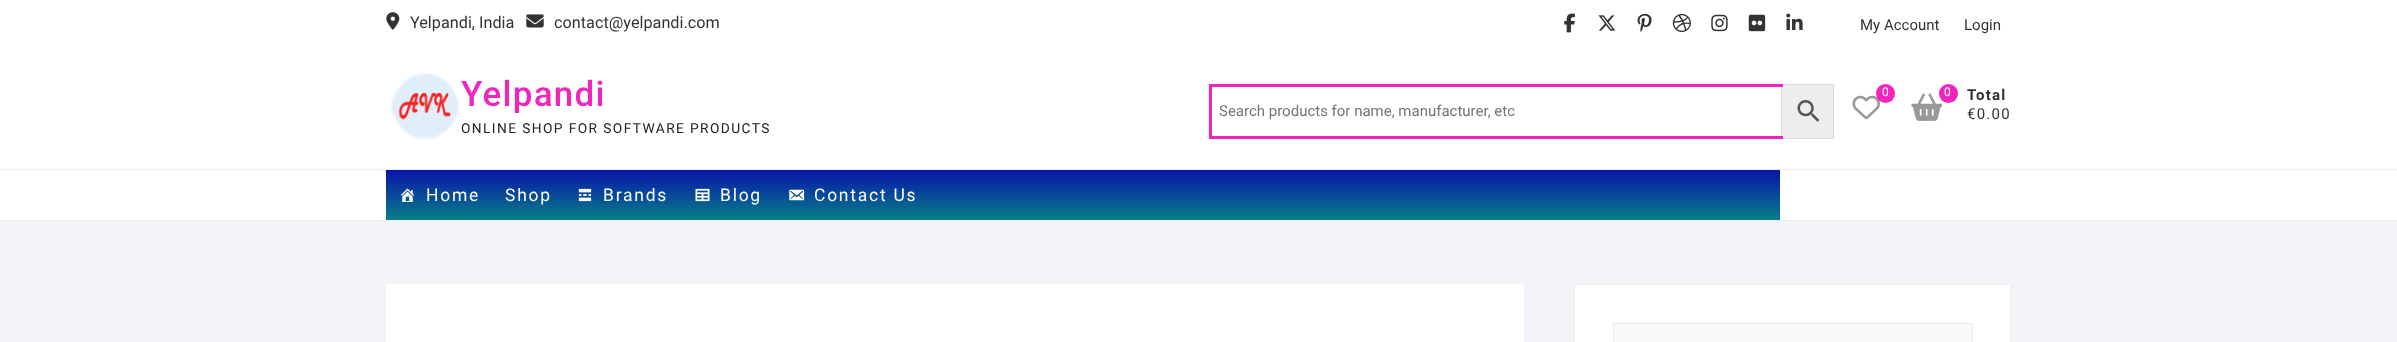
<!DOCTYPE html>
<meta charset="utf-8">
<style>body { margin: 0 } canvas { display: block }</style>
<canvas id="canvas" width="2397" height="342"></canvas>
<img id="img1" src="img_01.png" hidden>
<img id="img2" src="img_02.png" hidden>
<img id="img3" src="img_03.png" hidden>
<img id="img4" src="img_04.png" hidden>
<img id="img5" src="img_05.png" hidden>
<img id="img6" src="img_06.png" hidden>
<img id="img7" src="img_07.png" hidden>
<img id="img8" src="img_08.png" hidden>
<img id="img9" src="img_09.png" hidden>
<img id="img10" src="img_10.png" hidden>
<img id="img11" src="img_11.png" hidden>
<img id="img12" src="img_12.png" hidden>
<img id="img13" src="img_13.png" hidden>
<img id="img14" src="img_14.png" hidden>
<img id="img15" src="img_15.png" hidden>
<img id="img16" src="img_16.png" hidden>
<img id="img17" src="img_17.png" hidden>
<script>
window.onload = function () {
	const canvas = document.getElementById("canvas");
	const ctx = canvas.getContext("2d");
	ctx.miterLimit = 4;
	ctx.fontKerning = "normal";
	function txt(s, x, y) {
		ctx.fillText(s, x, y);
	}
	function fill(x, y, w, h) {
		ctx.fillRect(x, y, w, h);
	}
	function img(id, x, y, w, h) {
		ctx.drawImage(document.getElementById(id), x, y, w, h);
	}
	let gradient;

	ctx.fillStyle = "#F3F4F8";
	fill(0, 0, 2397, 342);
	ctx.fillStyle = "#FFFFFF";
	fill(0, 0, 2397, 220);
	img("img1", 386, 12, 14, 18);
	img("img2", 526, 14, 18, 14);
	img("img3", 1564, 13, 11, 20);
	img("img4", 1598, 15, 18, 16);
	img("img5", 1637, 13, 15, 19);
	img("img6", 1672, 13, 19, 20);
	img("img7", 1711, 14, 17, 18);
	img("img8", 1748, 14, 18, 18);
	img("img9", 1786, 13, 17, 17);
	img("img10", 391, 73, 68, 66);
	ctx.fillStyle = "#EDEDED";
	ctx.beginPath();
	ctx.rect(1781.5, 84.5, 52, 54);
	ctx.fill();
	ctx.strokeStyle = "#D8D8D8";
	ctx.stroke();
	ctx.fillStyle = "#F224BE";
	fill(1209, 84, 574, 3);
	fill(1209, 136, 574, 3);
	fill(1209, 84, 3, 55);
	img("img11", 1797, 100, 23, 22);
	img("img12", 1852, 95, 28, 25);
	ctx.beginPath();
	ctx.arc(1885.5, 93.5, 9.5, 0, Math.PI * 2);
	ctx.fill();
	img("img13", 1911, 93, 32, 28);
	ctx.beginPath();
	ctx.arc(1948.5, 93.5, 9.5, 0, Math.PI * 2);
	ctx.fill();
	ctx.fillStyle = "#EBEBEB";
	fill(0, 169, 2397, 1);
	fill(0, 220, 2397, 1);
	gradient = ctx.createLinearGradient(1083, 170, 1083, 220);
	gradient.addColorStop(0, "#0814AB");
	gradient.addColorStop(1, "#067F86");
	ctx.fillStyle = gradient;
	fill(386, 170, 1394, 50);
	img("img14", 401, 188, 13, 14);
	img("img15", 578, 188, 14, 14);
	img("img16", 695, 188, 15, 14);
	img("img17", 789, 189, 16, 12);
	ctx.fillStyle = "#FFFFFF";
	fill(386, 284, 1138, 58);
	ctx.beginPath();
	ctx.rect(1574.5, 284.5, 436, 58);
	ctx.fill();
	ctx.strokeStyle = "#F0F0F0";
	ctx.stroke();
	ctx.fillStyle = "#FAFAFA";
	ctx.beginPath();
	ctx.rect(1613.5, 323.5, 359, 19);
	ctx.fill();
	ctx.strokeStyle = "#EBEBEB";
	ctx.stroke();
	ctx.font = "16.25px Roboto";
	ctx.fillStyle = "#333333";
	txt("Yelpandi, India", 410, 28);
	txt("contact@yelpandi.com", 554, 28);
	ctx.font = "15px Roboto";
	txt("My Account", 1860, 30);
	txt("Login", 1964, 30);
	ctx.letterSpacing = "1.25px";
	ctx.font = "500 35px Roboto";
	ctx.fillStyle = "#F224BE";
	txt("Yelpandi", 461, 106);
	ctx.letterSpacing = "1.4px";
	ctx.font = "13.75px Roboto";
	ctx.fillStyle = "#222222";
	txt("ONLINE SHOP FOR SOFTWARE PRODUCTS", 461, 133);
	ctx.letterSpacing = "0px";
	ctx.font = "15px Roboto";
	ctx.fillStyle = "#757575";
	txt("Search products for name, manufacturer, etc", 1219, 116);
	ctx.font = "12px Roboto";
	ctx.fillStyle = "#FFFFFF";
	txt("0", 1882, 96);
	txt("0", 1944, 96);
	ctx.letterSpacing = "1.25px";
	ctx.font = "bold 15px Roboto";
	ctx.fillStyle = "#333333";
	txt("Total", 1967, 100);
	ctx.font = "15px Roboto";
	txt("€0.00", 1967, 119);
	ctx.letterSpacing = "1.75px";
	ctx.font = "17.5px Roboto";
	ctx.fillStyle = "#FFFFFF";
	txt("Home", 426, 201);
	txt("Shop", 505, 201);
	txt("Brands", 603, 201);
	txt("Blog", 720, 201);
	txt("Contact Us", 814, 201);
};
</script>
